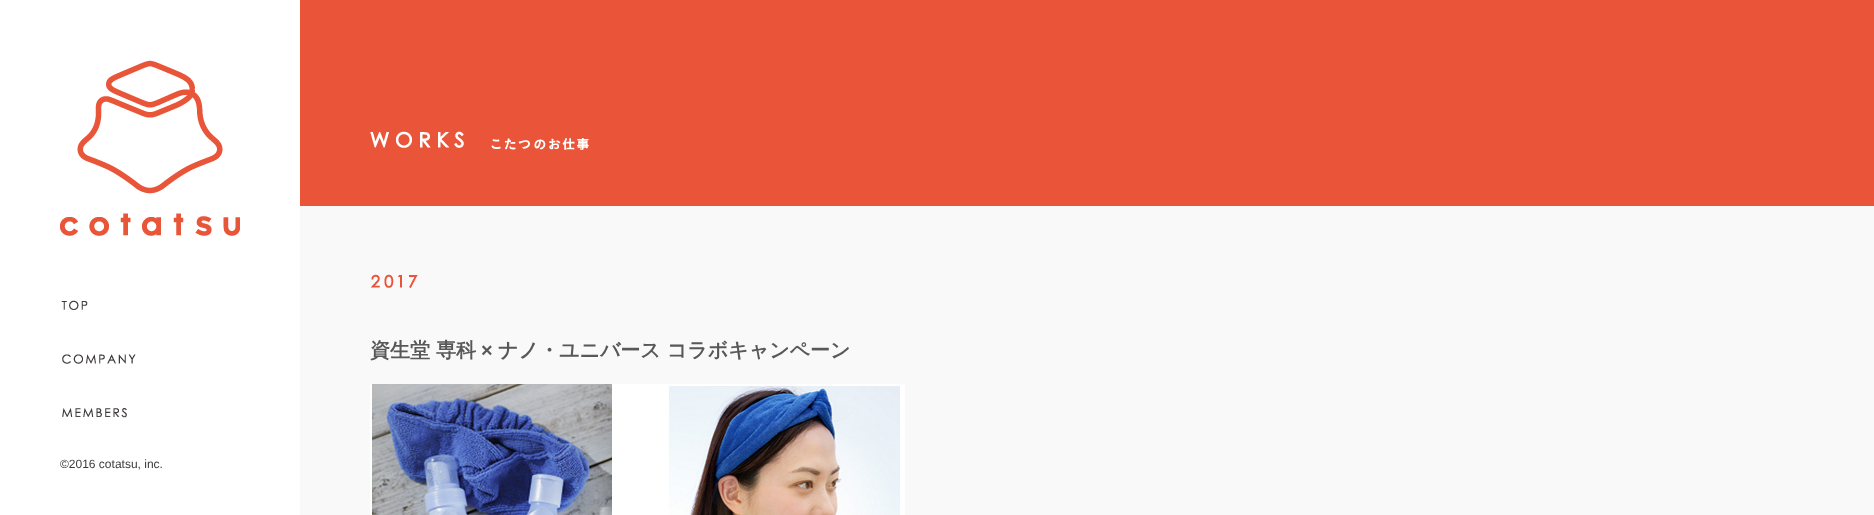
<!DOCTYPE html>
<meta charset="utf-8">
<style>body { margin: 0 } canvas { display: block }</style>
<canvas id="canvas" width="1874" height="515"></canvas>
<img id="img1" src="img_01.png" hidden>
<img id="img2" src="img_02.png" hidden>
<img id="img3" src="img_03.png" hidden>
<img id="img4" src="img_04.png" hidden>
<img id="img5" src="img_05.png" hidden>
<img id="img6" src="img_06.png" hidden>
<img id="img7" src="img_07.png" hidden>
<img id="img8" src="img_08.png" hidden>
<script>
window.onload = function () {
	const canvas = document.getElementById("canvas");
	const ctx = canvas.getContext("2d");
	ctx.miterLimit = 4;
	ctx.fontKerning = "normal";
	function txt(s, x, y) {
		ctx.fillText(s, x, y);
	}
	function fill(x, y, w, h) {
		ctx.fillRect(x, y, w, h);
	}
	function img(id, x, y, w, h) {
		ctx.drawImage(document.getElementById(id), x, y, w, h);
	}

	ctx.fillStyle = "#F9F9F9";
	fill(0, 0, 1874, 515);
	ctx.fillStyle = "#FFFFFF";
	fill(0, 0, 300, 515);
	img("img1", 60, 60, 180, 176);
	img("img2", 194, 88, 1, 2);
	img("img3", 61, 300, 27, 10);
	img("img4", 62, 354, 74, 10);
	img("img5", 62, 408, 65, 10);
	ctx.fillStyle = "#EA5539";
	fill(300, 0, 1574, 206);
	img("img6", 370, 131, 219, 19);
	img("img7", 370, 274, 48, 14);
	img("img8", 370, 384, 535, 131);
	ctx.font = "bold 20px WenQuanYi Zen Hei";
	ctx.fillStyle = "#595757";
	txt("資生堂 専科", 370, 357);
	ctx.font = "bold 20px Liberation Sans";
	txt("×", 481, 357);
	ctx.font = "bold 20px WenQuanYi Zen Hei";
	txt("ナノ・ユニバース コラボキャンペーン", 498, 357);
	ctx.font = "12px Liberation Sans";
	ctx.fillStyle = "#3E3A39";
	txt("©2016 cotatsu, inc.", 60, 468);
};
</script>
